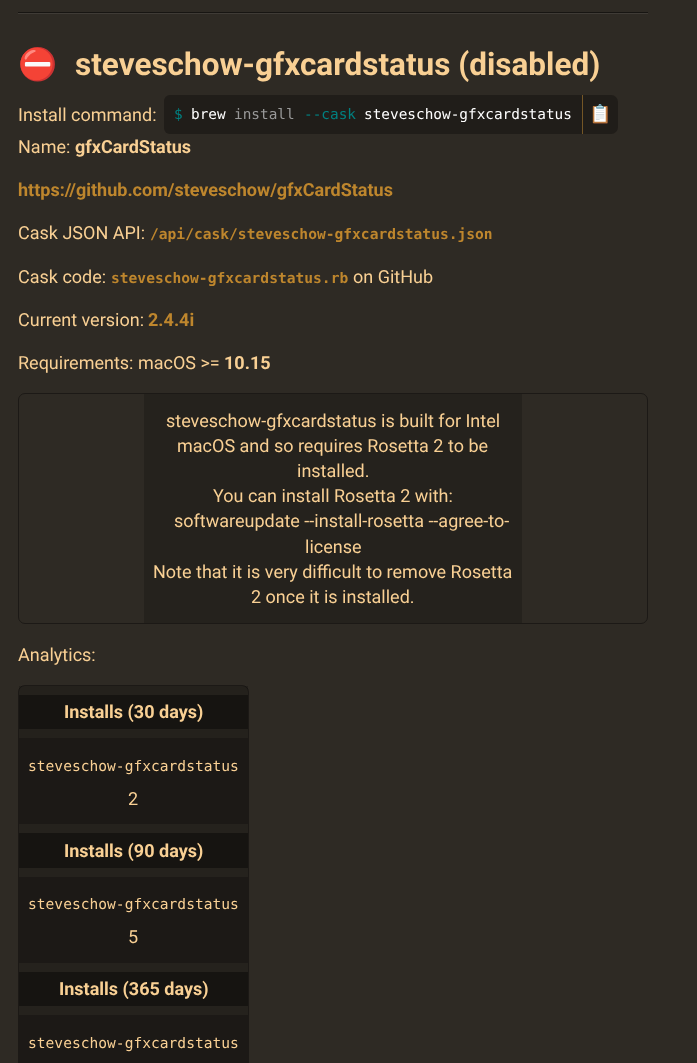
<!DOCTYPE html>
<meta charset="utf-8">
<style>body { margin: 0 } canvas { display: block }</style>
<canvas id="canvas" width="697" height="1063"></canvas>
<script>
window.onload = function () {
	const canvas = document.getElementById("canvas");
	const ctx = canvas.getContext("2d");
	ctx.miterLimit = 4;
	ctx.fontKerning = "normal";
	function txt(s, x, y) {
		ctx.fillText(s, x, y);
	}
	function fill(x, y, w, h) {
		ctx.fillRect(x, y, w, h);
	}

	ctx.fillStyle = "#2E2A24";
	fill(0, 0, 697, 1063);
	ctx.fillStyle = "#171512";
	fill(18, 12, 630, 1);
	ctx.fillStyle = "#3F3B36";
	fill(18, 13, 630, 1);
	ctx.fillStyle = "#201D19";
	ctx.beginPath();
	ctx.roundRect(164, 95, 418, 39, [6, 0, 0, 6]);
	ctx.fill();
	ctx.beginPath();
	ctx.roundRect(582, 95, 36, 39, [0, 7, 7, 0]);
	ctx.fill();
	ctx.fillStyle = "#745626";
	fill(582, 95, 1, 39);
	ctx.beginPath();
	ctx.roundRect(18.5, 393.5, 629, 230, 6.5);
	ctx.strokeStyle = "#1C1916";
	ctx.stroke();
	ctx.fillStyle = "#25221D";
	fill(144, 394, 378, 229);
	ctx.beginPath();
	ctx.roundRect(18.5, 685.5, 230, 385, 6.5);
	ctx.stroke();
	ctx.fillStyle = "rgba(0, 0, 0, 0.2)";
	fill(19, 686, 229, 52);
	ctx.fillStyle = "#161411";
	fill(19, 695, 229, 34);
	ctx.fillStyle = "#1C1916";
	fill(19, 738, 229, 86);
	ctx.fillStyle = "#25221D";
	fill(19, 824, 229, 53);
	ctx.fillStyle = "#161411";
	fill(19, 833, 229, 35);
	ctx.fillStyle = "#1C1916";
	fill(19, 877, 229, 86);
	ctx.fillStyle = "#25221D";
	fill(19, 963, 229, 52);
	ctx.fillStyle = "#161411";
	fill(19, 972, 229, 34);
	ctx.fillStyle = "#1C1916";
	fill(19, 1015, 229, 48);
	ctx.font = "bold 31.5px Noto Color Emoji";
	ctx.fillStyle = "#F9D094";
	txt("⛔", 18, 75);
	ctx.font = "bold 31.5px Roboto";
	txt("steveschow-gfxcardstatus (disabled)", 75, 75);
	ctx.font = "18px Roboto";
	txt("Install command:", 18, 121);
	ctx.font = "14.4px DejaVu Sans Mono";
	ctx.fillStyle = "#008080";
	txt("$", 174, 119);
	ctx.fillStyle = "#FFFFFF";
	txt("brew", 191, 119);
	ctx.fillStyle = "#999999";
	txt("install", 234, 119);
	ctx.fillStyle = "#008080";
	txt("--cask", 304, 119);
	ctx.fillStyle = "#FFFFFF";
	txt("steveschow-gfxcardstatus", 364, 119);
	ctx.font = "18px Noto Color Emoji";
	ctx.fillStyle = "#000000";
	txt("📋", 589, 120);
	ctx.font = "18px Roboto";
	ctx.fillStyle = "#F9D094";
	txt("Name:", 18, 153);
	ctx.font = "bold 18px Roboto";
	txt("gfxCardStatus", 75, 153);
	ctx.fillStyle = "#BE862D";
	txt("https://github.com/steveschow/gfxCardStatus", 18, 196);
	ctx.font = "18px Roboto";
	ctx.fillStyle = "#F9D094";
	txt("Cask JSON API:", 18, 239);
	ctx.font = "bold 14.6px DejaVu Sans Mono";
	ctx.fillStyle = "#BE862D";
	txt("/api/cask/steveschow-gfxcardstatus.json", 150, 239);
	ctx.font = "18px Roboto";
	ctx.fillStyle = "#F9D094";
	txt("Cask code:", 18, 283);
	ctx.font = "bold 14.6px DejaVu Sans Mono";
	ctx.fillStyle = "#BE862D";
	txt("steveschow-gfxcardstatus.rb", 111, 283);
	ctx.font = "18px Roboto";
	ctx.fillStyle = "#F9D094";
	txt("on GitHub", 353, 283);
	txt("Current version:", 18, 326);
	ctx.font = "bold 18px Roboto";
	ctx.fillStyle = "#BE862D";
	txt("2.4.4i", 148, 326);
	ctx.font = "18px Roboto";
	ctx.fillStyle = "#F9D094";
	txt("Requirements: macOS >=", 18, 369);
	ctx.font = "bold 18px Roboto";
	txt("10.15", 224, 369);
	ctx.font = "18px Roboto";
	txt("steveschow-gfxcardstatus is built for Intel", 166, 427);
	txt("macOS and so requires Rosetta 2 to be", 177, 452);
	txt("installed.", 297, 477);
	txt("You can install Rosetta 2 with:", 213, 502);
	txt("softwareupdate --install-rosetta --agree-to-", 174, 527);
	txt("license", 305, 553);
	txt("Note that it is very difficult to remove Rosetta", 153, 578);
	txt("2 once it is installed.", 251, 603);
	txt("Analytics:", 18, 661);
	ctx.font = "bold 18px Roboto";
	txt("Installs (30 days)", 64, 718);
	ctx.font = "14.6px DejaVu Sans Mono";
	txt("steveschow-gfxcardstatus", 28, 771);
	ctx.font = "18px Roboto";
	txt("2", 128, 805);
	ctx.font = "bold 18px Roboto";
	txt("Installs (90 days)", 64, 857);
	ctx.font = "14.6px DejaVu Sans Mono";
	txt("steveschow-gfxcardstatus", 28, 909);
	ctx.font = "18px Roboto";
	txt("5", 128, 943);
	ctx.font = "bold 18px Roboto";
	txt("Installs (365 days)", 59, 995);
	ctx.font = "14.6px DejaVu Sans Mono";
	txt("steveschow-gfxcardstatus", 28, 1048);
};
</script>
